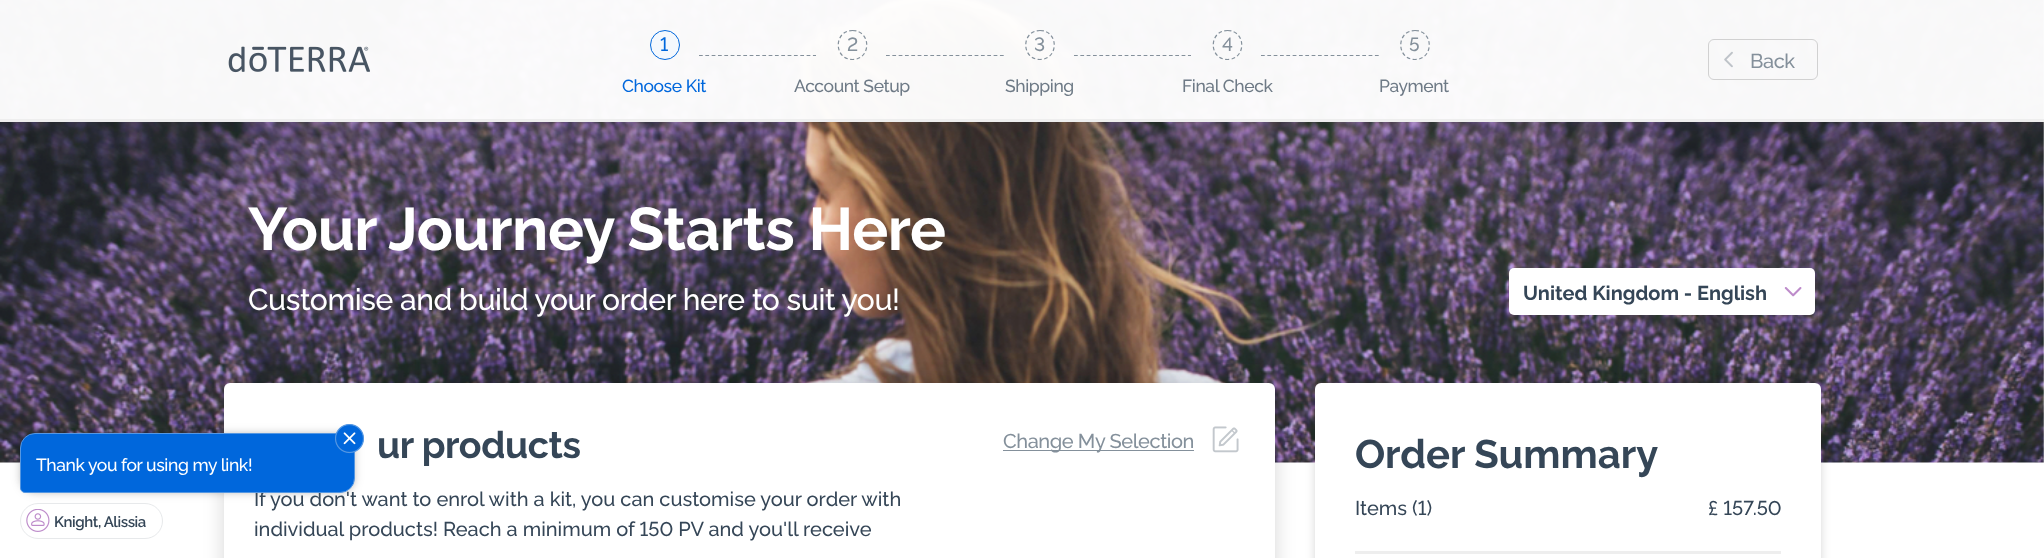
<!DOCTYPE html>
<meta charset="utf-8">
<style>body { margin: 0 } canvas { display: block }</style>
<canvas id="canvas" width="2044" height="558"></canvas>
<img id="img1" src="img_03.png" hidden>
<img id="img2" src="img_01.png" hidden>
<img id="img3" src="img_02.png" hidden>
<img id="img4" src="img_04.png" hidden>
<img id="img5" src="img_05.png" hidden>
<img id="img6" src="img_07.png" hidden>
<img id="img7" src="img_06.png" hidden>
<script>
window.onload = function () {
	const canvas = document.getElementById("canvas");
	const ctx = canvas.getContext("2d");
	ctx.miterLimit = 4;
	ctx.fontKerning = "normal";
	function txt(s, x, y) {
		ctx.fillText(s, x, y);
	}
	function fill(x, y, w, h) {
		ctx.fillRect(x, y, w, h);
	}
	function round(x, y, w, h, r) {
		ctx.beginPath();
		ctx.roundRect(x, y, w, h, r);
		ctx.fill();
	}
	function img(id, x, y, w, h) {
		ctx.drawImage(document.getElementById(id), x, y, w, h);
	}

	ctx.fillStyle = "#FFFFFF";
	fill(0, 0, 2044, 558);
	img("img1", 0, 0, 2044, 463);
	ctx.fillStyle = "rgba(255, 255, 255, 0.97)";
	fill(0, 0, 2044, 119);
	ctx.fillStyle = "#EEEEEE";
	fill(0, 119, 2044, 3);
	img("img2", 228, 46, 142, 27);
	ctx.fillStyle = "#F4F8FD";
	ctx.beginPath();
	ctx.arc(665, 45, 14.5, 0, Math.PI * 2);
	ctx.fill();
	ctx.strokeStyle = "#0067DC";
	ctx.stroke();
	ctx.beginPath();
	ctx.moveTo(699, 55.5);
	ctx.lineTo(816, 55.5);
	ctx.strokeStyle = "#84909B";
	ctx.lineWidth = 1.2;
	ctx.setLineDash([3.75, 2.58]);
	ctx.stroke();
	ctx.beginPath();
	ctx.moveTo(852.5, 30.5);
	ctx.bezierCurveTo(871.5, 30.5, 871.5, 59.5, 852.5, 59.5);
	ctx.bezierCurveTo(833.5, 59.5, 833.5, 30.5, 852.5, 30.5);
	ctx.closePath();
	ctx.setLineDash([3.75, 2.5]);
	ctx.stroke();
	ctx.beginPath();
	ctx.moveTo(886, 55.5);
	ctx.lineTo(1004, 55.5);
	ctx.setLineDash([3.75, 2.58]);
	ctx.stroke();
	ctx.beginPath();
	ctx.moveTo(1040, 30.5);
	ctx.bezierCurveTo(1059, 30.5, 1059, 59.5, 1040, 59.5);
	ctx.bezierCurveTo(1021, 59.5, 1021, 30.5, 1040, 30.5);
	ctx.closePath();
	ctx.setLineDash([3.75, 2.5]);
	ctx.stroke();
	ctx.beginPath();
	ctx.moveTo(1074, 55.5);
	ctx.lineTo(1191, 55.5);
	ctx.setLineDash([3.75, 2.58]);
	ctx.stroke();
	ctx.beginPath();
	ctx.moveTo(1227.5, 30.5);
	ctx.bezierCurveTo(1246.5, 30.5, 1246.5, 59.5, 1227.5, 59.5);
	ctx.bezierCurveTo(1208.5, 59.5, 1208.5, 30.5, 1227.5, 30.5);
	ctx.closePath();
	ctx.setLineDash([3.75, 2.5]);
	ctx.stroke();
	ctx.beginPath();
	ctx.moveTo(1261, 55.5);
	ctx.lineTo(1379, 55.5);
	ctx.setLineDash([3.75, 2.58]);
	ctx.stroke();
	ctx.beginPath();
	ctx.moveTo(1415, 30.5);
	ctx.bezierCurveTo(1434, 30.5, 1434, 59.5, 1415, 59.5);
	ctx.bezierCurveTo(1396, 59.5, 1396, 30.5, 1415, 30.5);
	ctx.closePath();
	ctx.setLineDash([3.75, 2.5]);
	ctx.stroke();
	ctx.beginPath();
	ctx.roundRect(1708.5, 39.5, 109, 40, 5.5);
	ctx.strokeStyle = "#D1D1D1";
	ctx.lineWidth = 1;
	ctx.setLineDash([]);
	ctx.stroke();
	img("img3", 1724, 51, 9, 17);
	ctx.fillStyle = "#FFFFFF";
	round(1509, 268, 306, 47, 5);
	img("img4", 1784, 287, 18, 10);
	ctx.fillStyle = "rgba(0, 0, 0, 0.16)";
	ctx.filter = "blur(10px)";
	ctx.beginPath();
	ctx.roundRect(224, 383, 1051, 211, 6);
	ctx.fill();
	ctx.filter = "none";
	ctx.fillStyle = "#FFFFFF";
	round(224, 383, 1051, 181, 6);
	ctx.fillStyle = "#84909B";
	fill(1003, 450, 191, 1);
	img("img5", 1212, 426, 27, 27);
	ctx.beginPath();
	ctx.roundRect(20.5, 503.5, 142, 35, 17.5);
	ctx.strokeStyle = "#E7E9EB";
	ctx.stroke();
	ctx.fillStyle = "rgba(0, 0, 0, 0.16)";
	ctx.filter = "blur(5px)";
	ctx.beginPath();
	ctx.roundRect(20, 433, 335, 60, 15);
	ctx.fill();
	ctx.filter = "none";
	ctx.fillStyle = "rgba(0, 0, 0, 0.08)";
	ctx.filter = "blur(2.5px)";
	ctx.beginPath();
	ctx.roundRect(20, 433, 335, 60, 15);
	ctx.fill();
	ctx.filter = "none";
	img("img6", 26, 509, 24, 23);
	ctx.fillStyle = "rgba(0, 0, 0, 0.16)";
	ctx.filter = "blur(5px)";
	ctx.beginPath();
	ctx.roundRect(1315, 383, 506, 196, 6);
	ctx.fill();
	ctx.filter = "none";
	ctx.fillStyle = "#FFFFFF";
	round(1315, 383, 506, 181, 6);
	ctx.fillStyle = "#EEEEEE";
	fill(1355, 551, 426, 3);
	ctx.letterSpacing = "-0.4px";
	ctx.font = "500 19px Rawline";
	ctx.fillStyle = "#0067DC";
	txt("1", 660, 51);
	ctx.font = "500 17.5px Rawline";
	txt("Choose Kit", 622, 92);
	ctx.font = "500 19px Rawline";
	ctx.fillStyle = "#84909B";
	txt("2", 847, 51);
	ctx.font = "500 17.5px Rawline";
	ctx.fillStyle = "#6E7A86";
	txt("Account Setup", 794, 92);
	ctx.font = "500 19px Rawline";
	ctx.fillStyle = "#84909B";
	txt("3", 1034, 51);
	ctx.font = "500 17.5px Rawline";
	ctx.fillStyle = "#6E7A86";
	txt("Shipping", 1005, 92);
	ctx.font = "500 19px Rawline";
	ctx.fillStyle = "#84909B";
	txt("4", 1222, 51);
	ctx.font = "500 17.5px Rawline";
	ctx.fillStyle = "#6E7A86";
	txt("Final Check", 1182, 92);
	ctx.font = "500 19px Rawline";
	ctx.fillStyle = "#84909B";
	txt("5", 1409, 51);
	ctx.font = "500 17.5px Rawline";
	ctx.fillStyle = "#6E7A86";
	txt("Payment", 1379, 92);
	ctx.font = "500 20px Rawline";
	ctx.fillStyle = "#84909B";
	txt("Back", 1750, 68);
	ctx.font = "bold 60px Rawline";
	ctx.fillStyle = "#FFFFFF";
	txt("Your Journey Starts Here", 248, 250);
	ctx.font = "500 30px Rawline";
	txt("Customise and build your order here to suit you!", 248, 310);
	ctx.letterSpacing = "0px";
	ctx.font = "bold 20px Rawline";
	ctx.fillStyle = "#354657";
	txt("United Kingdom - English", 1523, 300);
	ctx.letterSpacing = "-0.4px";
	ctx.font = "bold 37.5px Rawline";
	txt("ur products", 377, 458);
	ctx.font = "500 20px Rawline";
	ctx.fillStyle = "#84909B";
	txt("Change My Selection", 1003, 448);
	ctx.letterSpacing = "0px";
	ctx.fillStyle = "#354657";
	txt("If you don't want to enrol with a kit, you can customise your order with", 254, 506);
	txt("individual products! Reach a minimum of 150 PV and you'll receive", 254, 536);
	ctx.fillStyle = "#0067DC";
	ctx.beginPath();
	ctx.roundRect(20.5, 433.5, 334, 59, [14.5, 14.5, 14.5, 4.5]);
	ctx.fill();
	ctx.strokeStyle = "#5597E2";
	ctx.stroke();
	img("img7", 335, 424, 29, 30);
	ctx.letterSpacing = "-0.4px";
	ctx.font = "500 17.5px Rawline";
	ctx.fillStyle = "#FFFFFF";
	txt("Thank you for using my link!", 36, 471);
	ctx.font = "600 15px Rawline";
	ctx.fillStyle = "#354657";
	txt("Knight, Alissia", 54, 527);
	ctx.letterSpacing = "0px";
	ctx.font = "bold 40px Rawline";
	txt("Order Summary", 1355, 468);
	ctx.font = "500 20px Rawline";
	txt("Items (1)", 1355, 515);
	txt("£ 157.50", 1708, 515);
};
</script>
